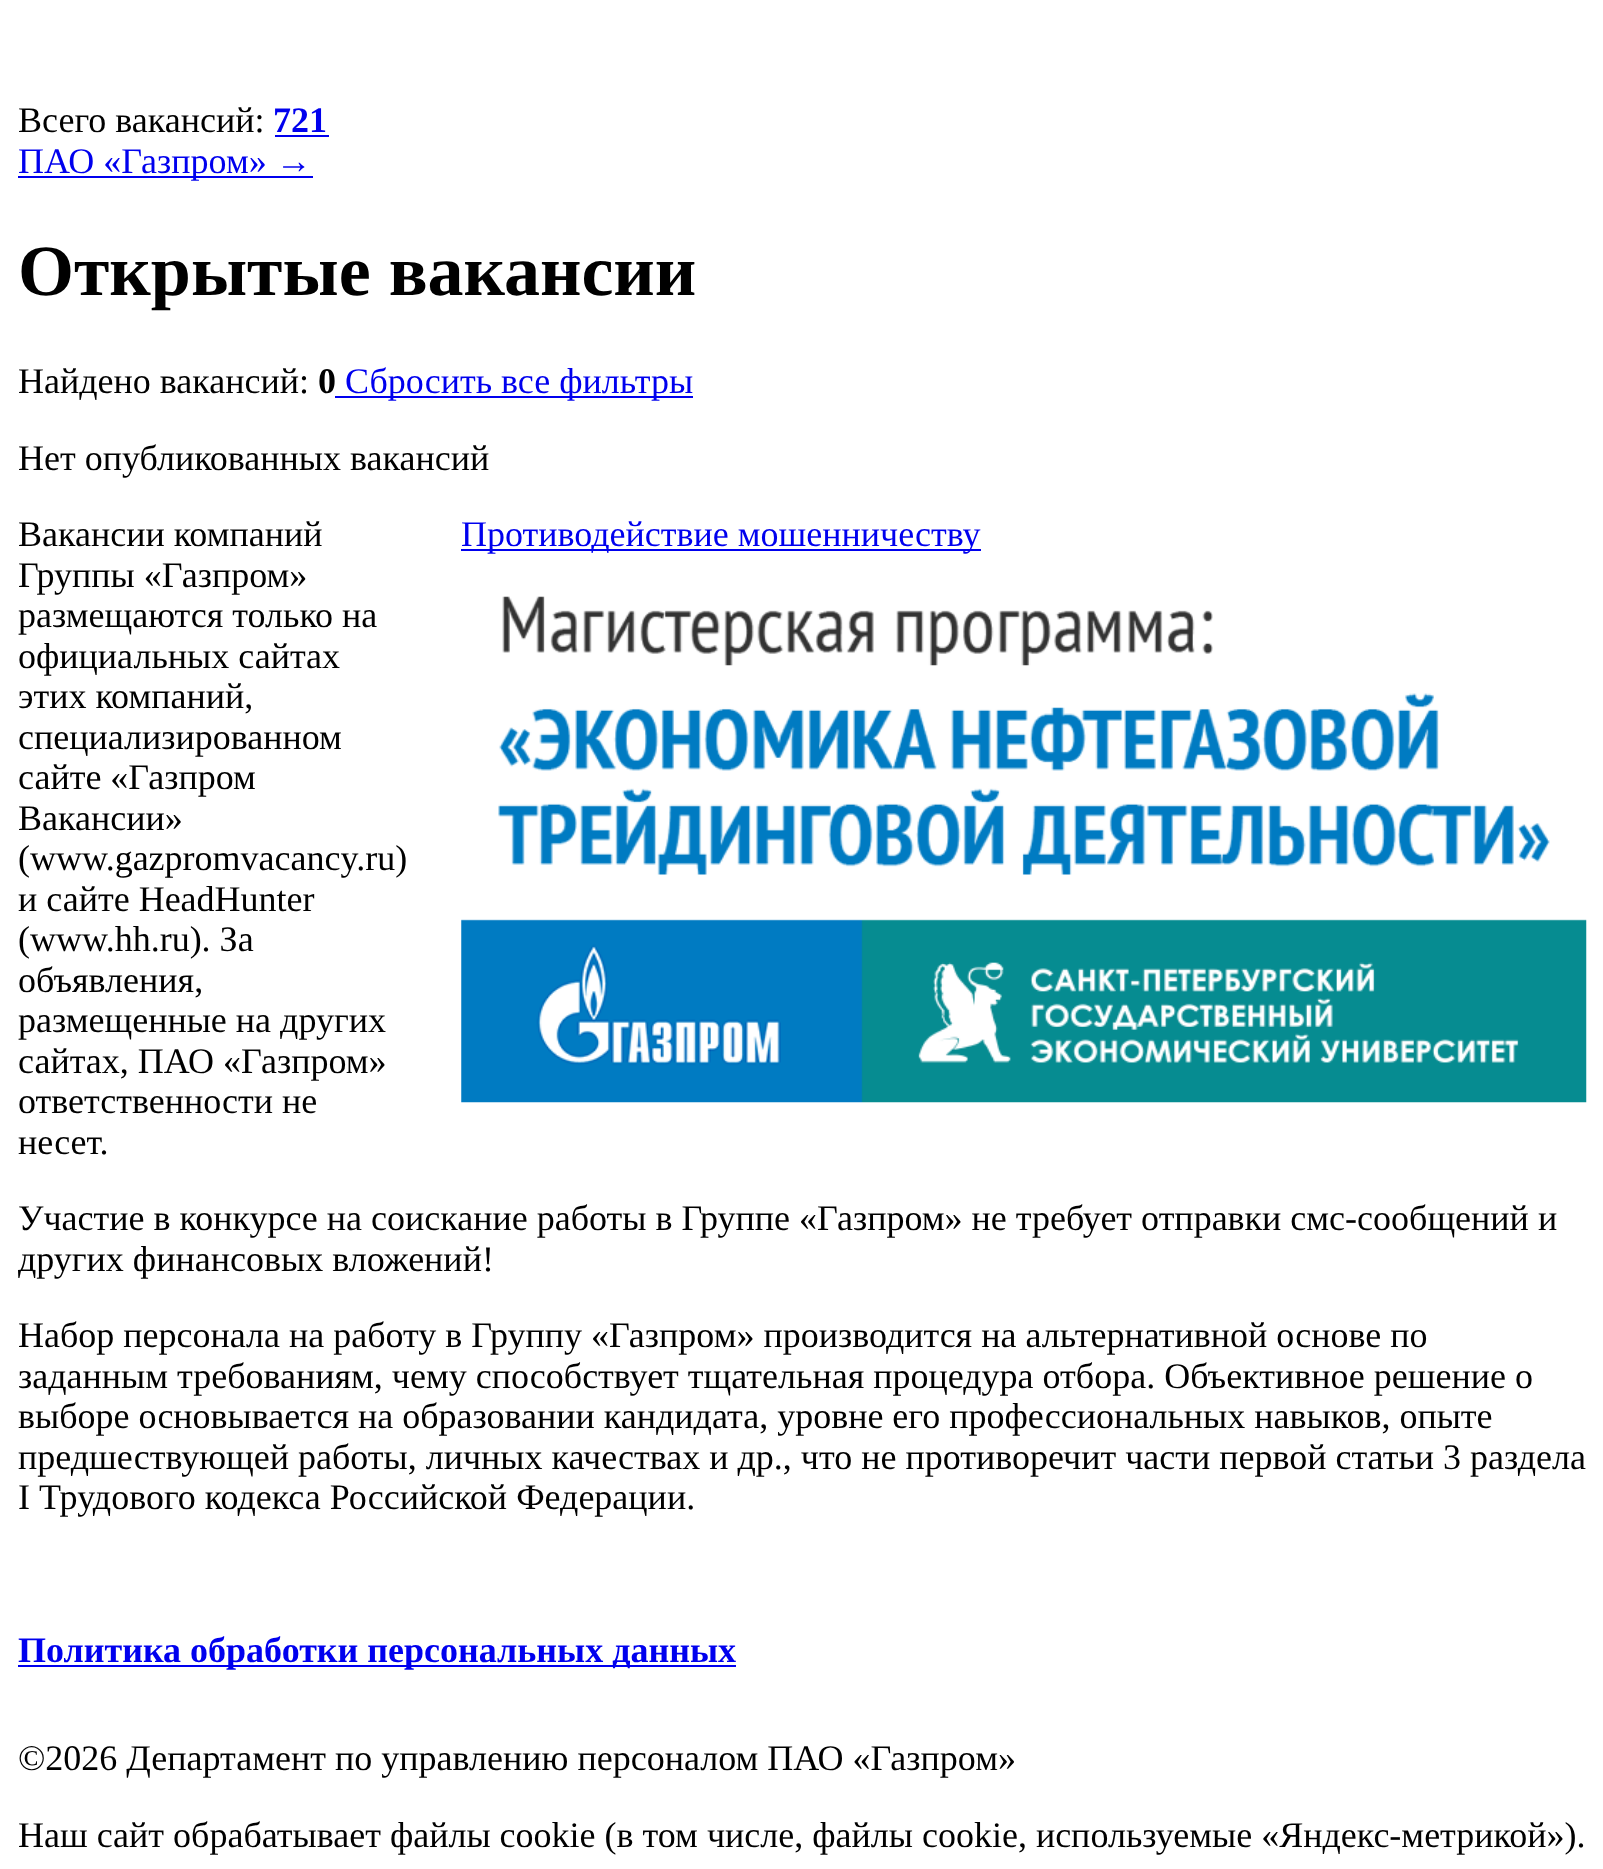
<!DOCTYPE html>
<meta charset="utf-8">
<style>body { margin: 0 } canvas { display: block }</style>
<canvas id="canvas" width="1603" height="1869"></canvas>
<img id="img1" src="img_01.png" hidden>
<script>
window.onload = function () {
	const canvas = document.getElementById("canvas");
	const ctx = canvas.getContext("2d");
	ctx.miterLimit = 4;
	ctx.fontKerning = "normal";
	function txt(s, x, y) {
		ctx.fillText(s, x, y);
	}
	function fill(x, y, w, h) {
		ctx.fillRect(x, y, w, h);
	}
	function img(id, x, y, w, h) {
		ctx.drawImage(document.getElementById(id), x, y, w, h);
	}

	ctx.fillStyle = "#FFFFFF";
	fill(0, 0, 1603, 1869);
	ctx.fillStyle = "#0000EE";
	fill(275, 135, 54, 2);
	fill(18, 176, 295, 2);
	fill(335, 396, 358, 2);
	fill(18, 1665, 718, 2);
	fill(461, 549, 520, 2);
	img("img1", 461, 596, 1126, 507);
	ctx.font = "36px Liberation Serif";
	ctx.fillStyle = "#000000";
	txt("Всего вакансий:", 18, 132);
	ctx.font = "bold 36px Liberation Serif";
	ctx.fillStyle = "#0000EE";
	txt("721", 273, 132);
	ctx.font = "36px Liberation Serif";
	txt("ПАО «Газпром» →", 18, 173);
	ctx.font = "bold 72px Liberation Serif";
	ctx.fillStyle = "#000000";
	txt("Открытые вакансии", 18, 295);
	ctx.font = "36px Liberation Serif";
	txt("Найдено вакансий:", 18, 393);
	ctx.font = "bold 36px Liberation Serif";
	txt("0", 318, 393);
	ctx.font = "36px Liberation Serif";
	ctx.fillStyle = "#0000EE";
	txt("Сбросить все фильтры", 345, 393);
	ctx.fillStyle = "#000000";
	txt("Нет опубликованных вакансий", 18, 470);
	txt("Вакансии компаний", 18, 546);
	txt("Группы «Газпром»", 18, 587);
	txt("размещаются только на", 18, 627);
	txt("официальных сайтах", 18, 668);
	txt("этих компаний,", 18, 708);
	txt("специализированном", 18, 749);
	txt("сайте «Газпром", 18, 789);
	txt("Вакансии»", 18, 830);
	txt("(www.gazpromvacancy.ru)", 18, 870);
	txt("и сайте HeadHunter", 18, 911);
	txt("(www.hh.ru). За", 18, 951);
	txt("объявления,", 18, 992);
	txt("размещенные на других", 18, 1032);
	txt("сайтах, ПАО «Газпром»", 18, 1073);
	txt("ответственности не", 18, 1113);
	txt("несет.", 18, 1154);
	txt("Участие в конкурсе на соискание работы в Группе «Газпром» не требует отправки смс-сообщений и", 18, 1230);
	txt("других финансовых вложений!", 18, 1271);
	txt("Набор персонала на работу в Группу «Газпром» производится на альтернативной основе по", 18, 1347);
	txt("заданным требованиям, чему способствует тщательная процедура отбора. Объективное решение о", 18, 1388);
	txt("выборе основывается на образовании кандидата, уровне его профессиональных навыков, опыте", 18, 1428);
	txt("предшествующей работы, личных качествах и др., что не противоречит части первой статьи 3 раздела", 18, 1469);
	txt("I Трудового кодекса Российской Федерации.", 18, 1509);
	ctx.font = "bold 36px Liberation Serif";
	ctx.fillStyle = "#0000EE";
	txt("Политика обработки персональных данных", 18, 1662);
	ctx.font = "36px Liberation Serif";
	txt("Противодействие мошенничеству", 461, 546);
	ctx.fillStyle = "#000000";
	txt("©2026 Департамент по управлению персоналом ПАО «Газпром»", 18, 1770);
	txt("Наш сайт обрабатывает файлы cookie (в том числе, файлы cookie, используемые «Яндекс-метрикой»).", 18, 1847);
};
</script>
